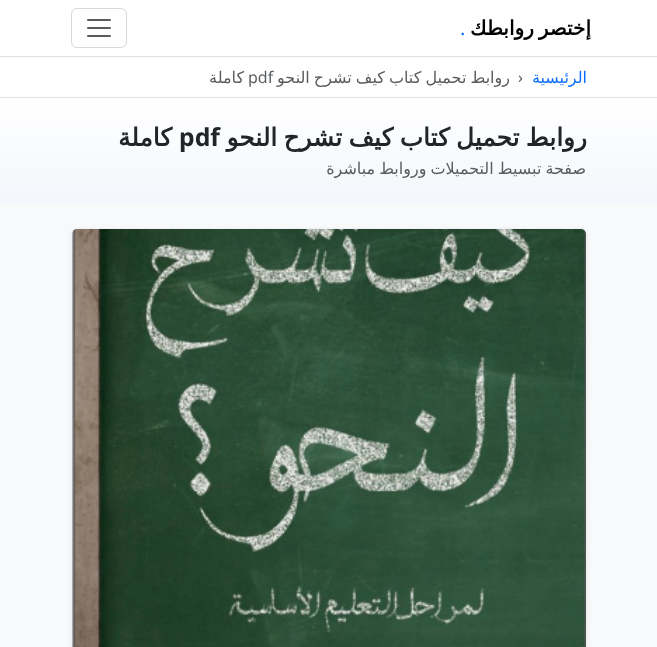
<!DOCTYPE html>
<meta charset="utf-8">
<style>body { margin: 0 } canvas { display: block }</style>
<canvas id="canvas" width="657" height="647"></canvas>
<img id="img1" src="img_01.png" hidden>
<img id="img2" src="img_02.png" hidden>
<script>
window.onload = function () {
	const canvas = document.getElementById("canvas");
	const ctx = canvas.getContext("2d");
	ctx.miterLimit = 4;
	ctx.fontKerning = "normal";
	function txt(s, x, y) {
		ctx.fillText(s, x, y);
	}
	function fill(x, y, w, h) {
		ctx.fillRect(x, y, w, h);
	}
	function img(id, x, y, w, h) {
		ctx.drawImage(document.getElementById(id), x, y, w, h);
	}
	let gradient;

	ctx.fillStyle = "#F7F9FB";
	fill(0, 0, 657, 647);
	ctx.fillStyle = "#FFFFFF";
	fill(0, 0, 657, 56);
	ctx.fillStyle = "#DEE2E6";
	fill(0, 56, 657, 1);
	ctx.beginPath();
	ctx.roundRect(71.5, 8.5, 55, 39, 5.5);
	ctx.strokeStyle = "#D9D9D9";
	ctx.stroke();
	img("img1", 87, 19, 24, 18);
	ctx.fillStyle = "#FFFFFF";
	fill(0, 57, 657, 40);
	ctx.fillStyle = "#DEE2E6";
	fill(0, 97, 657, 1);
	gradient = ctx.createLinearGradient(329, 98, 329, 204);
	gradient.addColorStop(0, "#FFFFFF");
	gradient.addColorStop(1, "#F3F6FB");
	ctx.fillStyle = gradient;
	fill(0, 98, 657, 106);
	ctx.fillStyle = "rgba(0, 0, 0, 0.07)";
	ctx.filter = "blur(2px)";
	ctx.beginPath();
	ctx.roundRect(71, 230, 516, 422, 6);
	ctx.fill();
	ctx.filter = "none";
	ctx.beginPath();
	ctx.roundRect(71.5, 228.5, 515, 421, 5.5);
	ctx.strokeStyle = "#EEF1F5";
	ctx.stroke();
	img("img2", 72, 229, 514, 418);
	ctx.letterSpacing = "0.5px";
	ctx.wordSpacing = "-2px";
	ctx.direction = "rtl";
	ctx.font = "bold 20px DejaVu Sans";
	ctx.fillStyle = "#000000";
	txt("إختصر روابطك", 591, 35);
	ctx.wordSpacing = "0px";
	ctx.direction = "ltr";
	ctx.font = "20px Noto Sans";
	ctx.fillStyle = "#0D6EFD";
	txt(".", 460, 35);
	ctx.letterSpacing = "0px";
	ctx.direction = "rtl";
	ctx.font = "16px DejaVu Sans";
	txt("الرئيسية", 587, 83);
	ctx.direction = "ltr";
	ctx.font = "16px Noto Sans";
	ctx.fillStyle = "#595C5F";
	txt("›", 518, 83);
	ctx.wordSpacing = "-1px";
	ctx.direction = "rtl";
	ctx.font = "16px DejaVu Sans";
	txt("روابط تحميل كتاب كيف تشرح النحو", 510, 83);
	ctx.wordSpacing = "0px";
	ctx.direction = "ltr";
	ctx.font = "16px Noto Sans";
	txt("pdf", 248, 83);
	ctx.direction = "rtl";
	ctx.font = "16px DejaVu Sans";
	txt("كاملة", 244, 83);
	ctx.wordSpacing = "-1.5px";
	ctx.font = "bold 24.75px DejaVu Sans";
	ctx.fillStyle = "#212529";
	txt("روابط تحميل كتاب كيف تشرح النحو", 587, 146);
	ctx.wordSpacing = "0px";
	ctx.direction = "ltr";
	ctx.font = "bold 24.75px Noto Sans";
	txt("pdf", 179, 146);
	ctx.direction = "rtl";
	ctx.font = "bold 24.75px DejaVu Sans";
	txt("كاملة", 172, 146);
	ctx.wordSpacing = "-1px";
	ctx.font = "16px DejaVu Sans";
	ctx.fillStyle = "#595C5F";
	txt("صفحة تبسيط التحميلات وروابط مباشرة", 586, 174);
};
</script>
